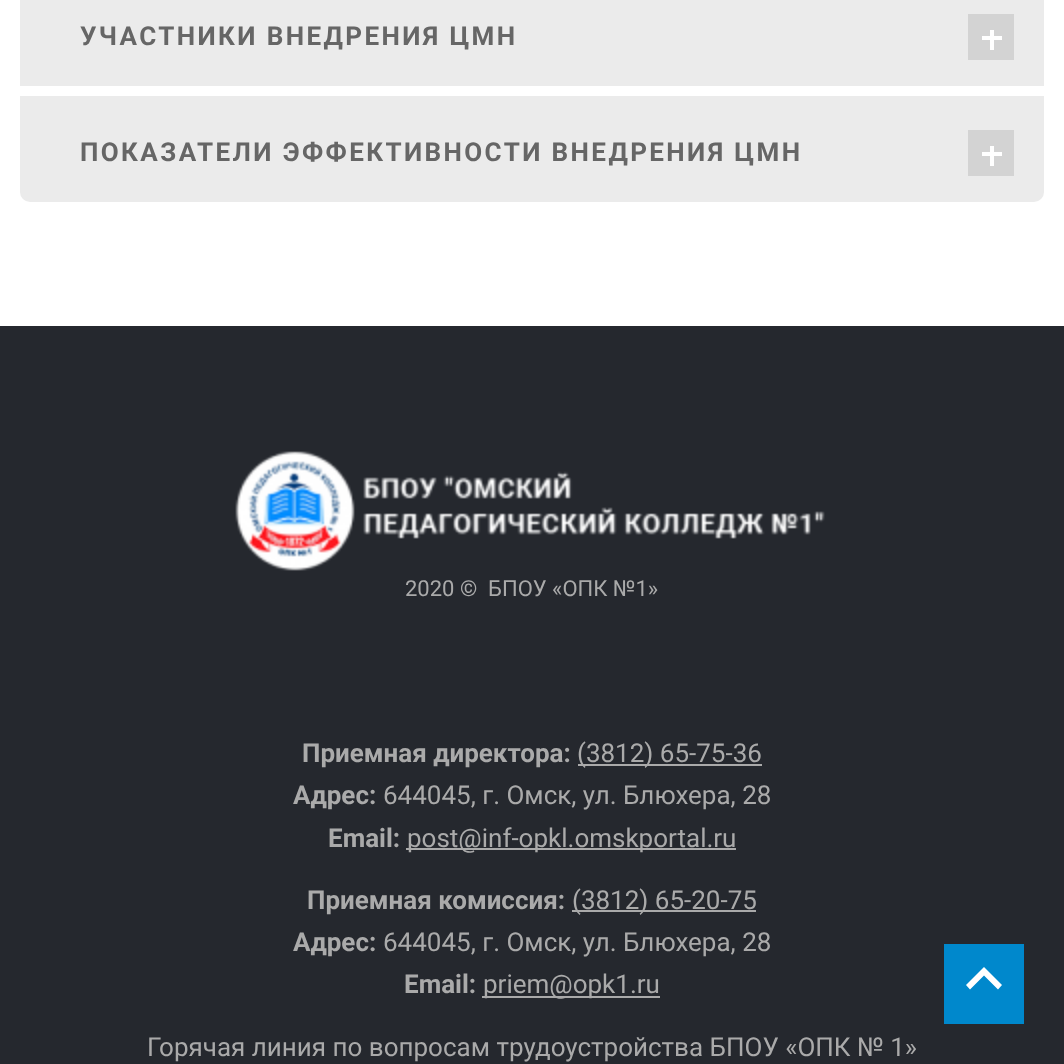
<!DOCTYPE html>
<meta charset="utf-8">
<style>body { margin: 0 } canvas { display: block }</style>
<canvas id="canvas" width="1064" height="1064"></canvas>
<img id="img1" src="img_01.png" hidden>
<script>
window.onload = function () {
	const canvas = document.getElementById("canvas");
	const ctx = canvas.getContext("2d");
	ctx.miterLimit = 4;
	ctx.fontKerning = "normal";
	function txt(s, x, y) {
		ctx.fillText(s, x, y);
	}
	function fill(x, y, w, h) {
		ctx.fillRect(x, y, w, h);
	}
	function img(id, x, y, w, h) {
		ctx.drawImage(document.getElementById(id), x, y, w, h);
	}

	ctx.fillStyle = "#FFFFFF";
	fill(0, 0, 1064, 1064);
	ctx.fillStyle = "#EBEBEB";
	fill(20, 0, 1024, 86);
	ctx.fillStyle = "#D3D3D3";
	fill(968, 14, 46, 46);
	ctx.fillStyle = "#FFFFFF";
	fill(982, 36, 20, 4);
	fill(990, 30, 4, 20);
	ctx.fillStyle = "#EBEBEB";
	ctx.beginPath();
	ctx.roundRect(20, 96, 1024, 106, [0, 0, 10, 10]);
	ctx.fill();
	ctx.fillStyle = "#D3D3D3";
	fill(968, 130, 46, 46);
	ctx.fillStyle = "#FFFFFF";
	fill(982, 152, 20, 4);
	fill(990, 146, 4, 20);
	ctx.fillStyle = "#25282E";
	fill(0, 326, 1064, 738);
	img("img1", 235, 451, 590, 120);
	ctx.fillStyle = "#AAAAAA";
	fill(578, 764, 184, 2);
	fill(406, 848, 330, 2);
	fill(572, 910, 184, 2);
	fill(482, 996, 178, 2);
	ctx.fillStyle = "#0088CC";
	fill(944, 944, 80, 80);
	ctx.fillStyle = "#FFFFFF";
	ctx.beginPath();
	ctx.moveTo(1002, 985);
	ctx.lineTo(998, 989.5);
	ctx.lineTo(984, 975.5);
	ctx.lineTo(970, 989.5);
	ctx.lineTo(966, 985);
	ctx.lineTo(984, 967);
	ctx.closePath();
	ctx.fill();
	ctx.letterSpacing = "2.4px";
	ctx.font = "bold 26px Roboto";
	ctx.fillStyle = "#666666";
	txt("УЧАСТНИКИ ВНЕДРЕНИЯ ЦМН", 80, 45);
	txt("ПОКАЗАТЕЛИ ЭФФЕКТИВНОСТИ ВНЕДРЕНИЯ ЦМН", 80, 161);
	ctx.letterSpacing = "0px";
	ctx.font = "22px Roboto";
	ctx.fillStyle = "#AAAAAA";
	txt("2020 ©  БПОУ «ОПК №1»", 405, 596);
	ctx.font = "bold 26px Roboto";
	txt("Приемная директора:", 302, 762);
	ctx.font = "26px Roboto";
	txt("(3812) 65-75-36", 577, 762);
	ctx.font = "bold 26px Roboto";
	txt("Адрес:", 293, 804);
	ctx.font = "26px Roboto";
	txt("644045, г. Омск, ул. Блюхера, 28", 383, 804);
	ctx.font = "bold 26px Roboto";
	txt("Email:", 328, 847);
	ctx.font = "26px Roboto";
	txt("post@inf-opkl.omskportal.ru", 407, 847);
	ctx.font = "bold 26px Roboto";
	txt("Приемная комиссия:", 307, 909);
	ctx.font = "26px Roboto";
	txt("(3812) 65-20-75", 572, 909);
	ctx.font = "bold 26px Roboto";
	txt("Адрес:", 293, 951);
	ctx.font = "26px Roboto";
	txt("644045, г. Омск, ул. Блюхера, 28", 383, 951);
	ctx.font = "bold 26px Roboto";
	txt("Email:", 404, 993);
	ctx.font = "26px Roboto";
	txt("priem@opk1.ru", 483, 993);
	txt("Горячая линия по вопросам трудоустройства БПОУ «ОПК № 1»", 147, 1056);
};
</script>
